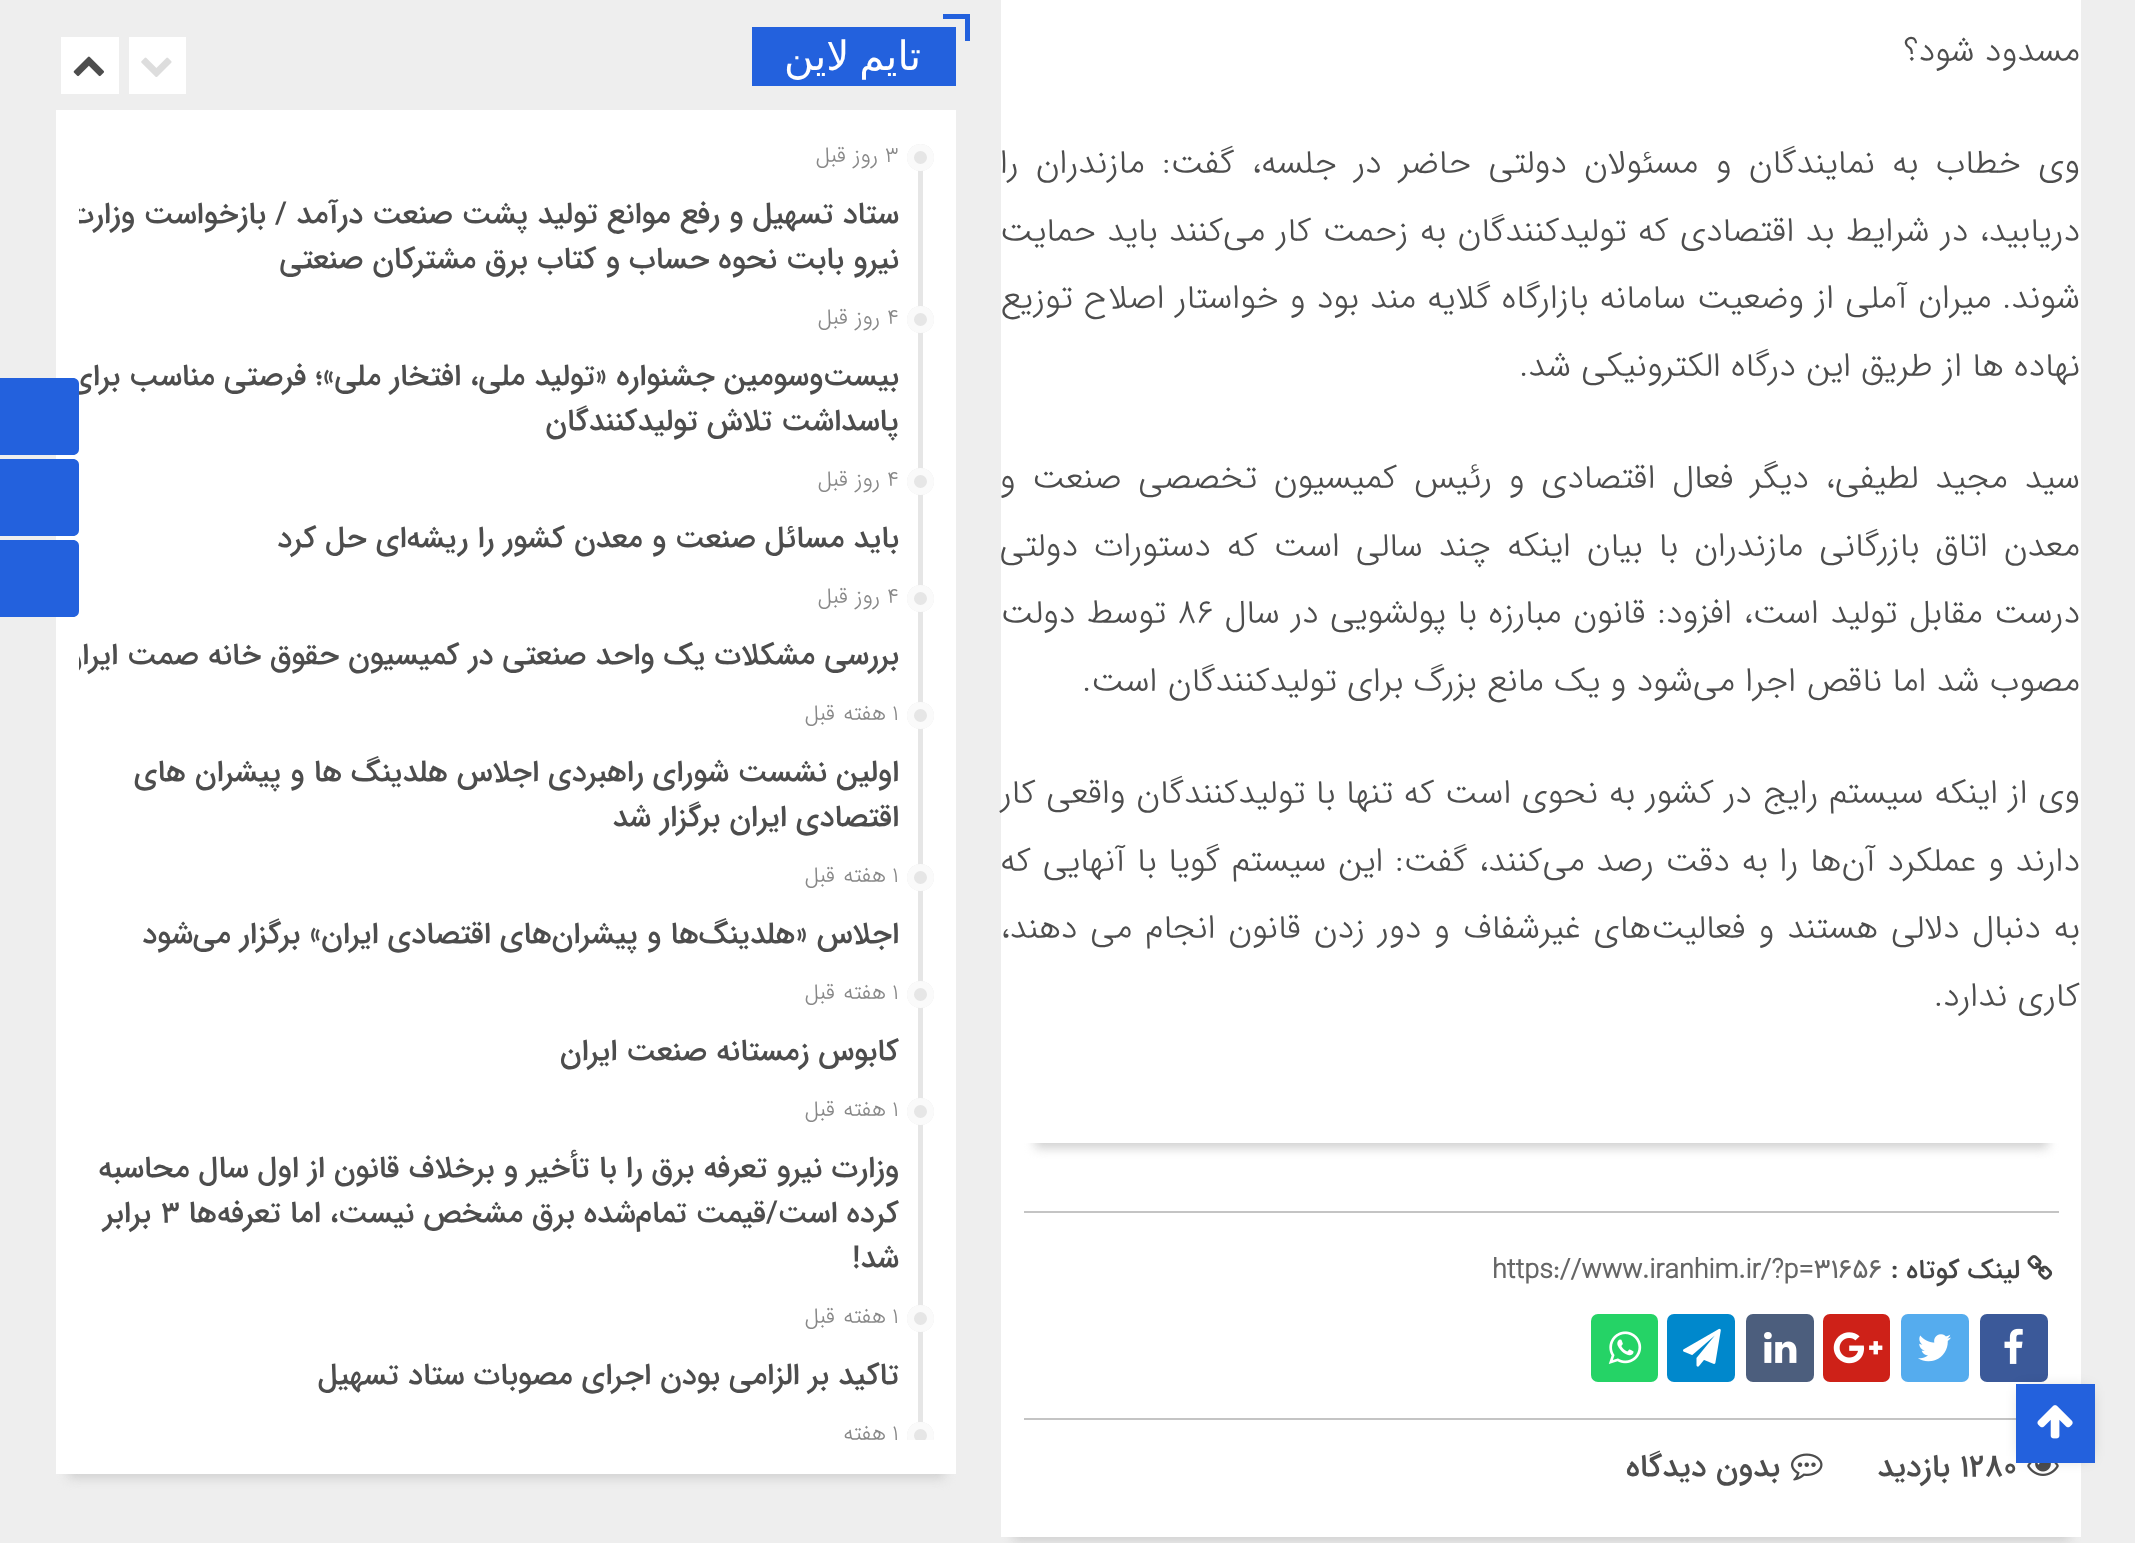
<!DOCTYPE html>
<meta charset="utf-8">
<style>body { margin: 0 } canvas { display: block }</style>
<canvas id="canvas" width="2135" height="1543"></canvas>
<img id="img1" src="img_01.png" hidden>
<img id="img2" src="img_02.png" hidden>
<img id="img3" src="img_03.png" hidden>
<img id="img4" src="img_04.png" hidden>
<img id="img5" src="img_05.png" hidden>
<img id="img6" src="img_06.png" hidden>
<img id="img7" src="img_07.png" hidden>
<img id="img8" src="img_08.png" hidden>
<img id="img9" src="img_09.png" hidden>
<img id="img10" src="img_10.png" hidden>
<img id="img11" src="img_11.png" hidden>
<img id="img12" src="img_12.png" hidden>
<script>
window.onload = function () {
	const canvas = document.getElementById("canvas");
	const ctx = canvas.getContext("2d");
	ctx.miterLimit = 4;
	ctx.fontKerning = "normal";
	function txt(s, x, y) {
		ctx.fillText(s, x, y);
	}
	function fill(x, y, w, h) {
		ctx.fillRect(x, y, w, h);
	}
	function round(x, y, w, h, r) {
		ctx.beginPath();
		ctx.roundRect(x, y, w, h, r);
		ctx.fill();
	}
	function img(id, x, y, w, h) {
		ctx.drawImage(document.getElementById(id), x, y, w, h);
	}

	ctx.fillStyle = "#EEEEEE";
	fill(0, 0, 2135, 1543);
	ctx.fillStyle = "#CFCFCF";
	ctx.filter = "blur(5.5px)";
	ctx.beginPath();
	ctx.rect(1013, -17, 1057, 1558);
	ctx.fill();
	ctx.filter = "none";
	ctx.fillStyle = "#FFFFFF";
	fill(1001, 0, 1080, 1537);
	ctx.save();
	ctx.beginPath();
	ctx.rect(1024, 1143, 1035, 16);
	ctx.clip();
	ctx.fillStyle = "#CFCFCF";
	ctx.filter = "blur(5.5px)";
	ctx.beginPath();
	ctx.rect(1035, 1103, 1013, 45);
	ctx.fill();
	ctx.filter = "none";
	ctx.restore();
	ctx.fillStyle = "#C4C4C4";
	fill(1024, 1211, 1035, 2);
	fill(1024, 1418, 992, 2);
	img("img1", 2027, 1255, 26, 25);
	ctx.fillStyle = "#3B5999";
	round(1980, 1314, 68, 68, 7);
	img("img2", 2004, 1328, 19, 36);
	ctx.fillStyle = "#55ACEE";
	round(1901, 1314, 68, 68, 7);
	img("img3", 1918, 1334, 33, 28);
	ctx.fillStyle = "#CE2118";
	round(1823, 1314, 67, 68, 7);
	img("img4", 1833, 1332, 50, 32);
	ctx.fillStyle = "#4C5E7D";
	round(1746, 1314, 68, 68, 7);
	img("img5", 1764, 1332, 33, 31);
	ctx.fillStyle = "#0088CC";
	round(1667, 1314, 68, 68, 7);
	img("img6", 1683, 1328, 38, 39);
	ctx.fillStyle = "#25D366";
	round(1591, 1314, 67, 68, 7);
	img("img7", 1608, 1331, 34, 33);
	img("img8", 2027, 1463, 32, 13);
	img("img9", 1791, 1453, 32, 28);
	ctx.fillStyle = "#2361DD";
	fill(752, 27, 204, 59);
	fill(943, 14, 27, 5);
	fill(965, 14, 5, 27);
	ctx.fillStyle = "#CFCFCF";
	ctx.filter = "blur(5.5px)";
	ctx.beginPath();
	ctx.rect(68, 137, 877, 1341);
	ctx.fill();
	ctx.filter = "none";
	ctx.fillStyle = "#FFFFFF";
	fill(56, 110, 900, 1364);
	fill(129, 37, 57, 57);
	img("img10", 141, 57, 31, 20);
	fill(61, 37, 58, 57);
	img("img11", 73, 56, 31, 21);
	ctx.fillStyle = "#E6E6E6";
	fill(918, 144, 5, 1278);
	ctx.beginPath();
	ctx.arc(920.5, 157.5, 13.5, 0, Math.PI * 2);
	ctx.fill();
	ctx.beginPath();
	ctx.arc(920.5, 157.5, 10, 0, Math.PI * 2);
	ctx.strokeStyle = "rgba(255, 255, 255, 0.8)";
	ctx.lineWidth = 7;
	ctx.stroke();
	ctx.beginPath();
	ctx.arc(920.5, 319.5, 13.5, 0, Math.PI * 2);
	ctx.fill();
	ctx.beginPath();
	ctx.arc(920.5, 319.5, 10, 0, Math.PI * 2);
	ctx.stroke();
	ctx.beginPath();
	ctx.arc(920.5, 481.5, 13.5, 0, Math.PI * 2);
	ctx.fill();
	ctx.beginPath();
	ctx.arc(920.5, 481.5, 10, 0, Math.PI * 2);
	ctx.stroke();
	ctx.beginPath();
	ctx.arc(920.5, 598.5, 13.5, 0, Math.PI * 2);
	ctx.fill();
	ctx.beginPath();
	ctx.arc(920.5, 598.5, 10, 0, Math.PI * 2);
	ctx.stroke();
	ctx.beginPath();
	ctx.arc(920.5, 715.5, 13.5, 0, Math.PI * 2);
	ctx.fill();
	ctx.beginPath();
	ctx.arc(920.5, 715.5, 10, 0, Math.PI * 2);
	ctx.stroke();
	ctx.beginPath();
	ctx.arc(920.5, 877.5, 13.5, 0, Math.PI * 2);
	ctx.fill();
	ctx.beginPath();
	ctx.arc(920.5, 877.5, 10, 0, Math.PI * 2);
	ctx.stroke();
	ctx.beginPath();
	ctx.arc(920.5, 994.5, 13.5, 0, Math.PI * 2);
	ctx.fill();
	ctx.beginPath();
	ctx.arc(920.5, 994.5, 10, 0, Math.PI * 2);
	ctx.stroke();
	ctx.beginPath();
	ctx.arc(920.5, 1111.5, 13.5, 0, Math.PI * 2);
	ctx.fill();
	ctx.beginPath();
	ctx.arc(920.5, 1111.5, 10, 0, Math.PI * 2);
	ctx.stroke();
	ctx.beginPath();
	ctx.arc(920.5, 1318.5, 13.5, 0, Math.PI * 2);
	ctx.fill();
	ctx.beginPath();
	ctx.arc(920.5, 1318.5, 10, 0, Math.PI * 2);
	ctx.stroke();
	ctx.save();
	ctx.beginPath();
	ctx.rect(79, 144, 855, 1296);
	ctx.clip();
	ctx.beginPath();
	ctx.arc(920.5, 1435.5, 13.5, 0, Math.PI * 2);
	ctx.fill();
	ctx.beginPath();
	ctx.arc(920.5, 1435.5, 10, 0, Math.PI * 2);
	ctx.stroke();
	ctx.restore();
	ctx.fillStyle = "#2361DD";
	ctx.beginPath();
	ctx.moveTo(-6, 378);
	ctx.lineTo(73, 378);
	ctx.bezierCurveTo(76.5, 378, 79, 380.5, 79, 384);
	ctx.lineTo(79, 449);
	ctx.bezierCurveTo(79, 452.5, 76.5, 455, 73, 455);
	ctx.lineTo(-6, 455);
	ctx.closePath();
	ctx.fill();
	ctx.beginPath();
	ctx.moveTo(-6, 459);
	ctx.lineTo(73, 459);
	ctx.bezierCurveTo(76.5, 459, 79, 461.5, 79, 465);
	ctx.lineTo(79, 530);
	ctx.bezierCurveTo(79, 533.5, 76.5, 536, 73, 536);
	ctx.lineTo(-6, 536);
	ctx.closePath();
	ctx.fill();
	ctx.beginPath();
	ctx.moveTo(-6, 540);
	ctx.lineTo(73, 540);
	ctx.bezierCurveTo(76.5, 540, 79, 542.5, 79, 546);
	ctx.lineTo(79, 611);
	ctx.bezierCurveTo(79, 614.5, 76.5, 617, 73, 617);
	ctx.lineTo(-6, 617);
	ctx.closePath();
	ctx.fill();
	ctx.fillStyle = "rgba(0, 0, 0, 0.3)";
	ctx.filter = "blur(8px)";
	ctx.beginPath();
	ctx.rect(2023, 1391, 65, 65);
	ctx.fill();
	ctx.filter = "none";
	ctx.fillStyle = "#2361DD";
	fill(2016, 1384, 79, 79);
	img("img12", 2037, 1405, 36, 34);
	ctx.direction = "rtl";
	ctx.font = "300 33.75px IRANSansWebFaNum";
	ctx.fillStyle = "#4D4D4D";
	txt("مسدود شود؟", 2080, 61);
	ctx.wordSpacing = "7px";
	txt("وی خطاب به نمایندگان و مسئولان دولتی حاضر در جلسه، گفت: مازندران را", 2080, 173);
	ctx.wordSpacing = "1px";
	txt("دریابید، در شرایط بد اقتصادی که تولیدکنندگان به زحمت کار می‌کنند باید حمایت", 2080, 241);
	ctx.wordSpacing = "0.8px";
	txt("شوند. میران آملی از وضعیت سامانه بازارگاه گلایه مند بود و خواستار اصلاح توزیع", 2080, 308);
	ctx.wordSpacing = "0px";
	txt("نهاده ها از طریق این درگاه الکترونیکی شد.", 2080, 376);
	ctx.wordSpacing = "6.5px";
	txt("سید مجید لطیفی، دیگر فعال اقتصادی و رئیس کمیسیون تخصصی صنعت و", 2080, 488);
	ctx.wordSpacing = "5.75px";
	txt("معدن اتاق بازرگانی مازندران با بیان اینکه چند سالی است که دستورات دولتی", 2080, 556);
	ctx.wordSpacing = "1.25px";
	txt("درست مقابل تولید است، افزود: قانون مبارزه با پولشویی در سال", 2080, 623);
	ctx.wordSpacing = "0px";
	ctx.direction = "ltr";
	txt("۸۶", 1177, 623);
	ctx.wordSpacing = "1px";
	ctx.direction = "rtl";
	txt("توسط دولت", 1166, 623);
	ctx.wordSpacing = "0px";
	txt("مصوب شد اما ناقص اجرا می‌شود و یک مانع بزرگ برای تولیدکنندگان است.", 2080, 691);
	ctx.wordSpacing = "0.3px";
	txt("وی از اینکه سیستم رایج در کشور به نحوی است که تنها با تولیدکنندگان واقعی کار", 2080, 803);
	ctx.wordSpacing = "1.4px";
	txt("دارند و عملکرد آن‌ها را به دقت رصد می‌کنند، گفت: این سیستم گویا با آنهایی که", 2080, 871);
	ctx.wordSpacing = "2.6px";
	txt("به دنبال دلالی هستند و فعالیت‌های غیرشفاف و دور زدن قانون انجام می دهند،", 2080, 938);
	ctx.wordSpacing = "0px";
	txt("کاری ندارد.", 2080, 1006);
	ctx.font = "500 27px IRANSansWebFaNum";
	ctx.fillStyle = "#444444";
	txt("لینک کوتاه :", 2020, 1278);
	ctx.direction = "ltr";
	ctx.font = "bold 27px IRANSansWebFaNum";
	ctx.fillStyle = "#666666";
	txt("https://www.iranhim.ir/?p=31656", 1492, 1278);
	ctx.font = "500 31.5px IRANSansWebFaNum";
	ctx.fillStyle = "#4D4D4D";
	txt("1280", 1960, 1476);
	ctx.direction = "rtl";
	txt("بازدید", 1950, 1476);
	txt("بدون دیدگاه", 1780, 1476);
	ctx.wordSpacing = "-3px";
	ctx.font = "40.5px DejaVu Sans";
	ctx.fillStyle = "#FFFFFF";
	txt("تایم لاین", 921, 70);
	ctx.wordSpacing = "0px";
	ctx.direction = "ltr";
	ctx.font = "300 22px IRANSansWebFaNum";
	ctx.fillStyle = "#888888";
	txt("3", 885, 162);
	ctx.direction = "rtl";
	txt("روز", 878, 162);
	txt("قبل", 846, 162);
	ctx.save();
	ctx.beginPath();
	ctx.rect(79, 144, 855, 1296);
	ctx.clip();
	ctx.font = "500 30.4px IRANSansWebFaNum";
	ctx.fillStyle = "#4D4D4D";
	txt("ستاد تسهیل و رفع موانع تولید پشت صنعت درآمد / بازخواست وزارت", 899, 223);
	ctx.restore();
	ctx.font = "500 30.4px IRANSansWebFaNum";
	ctx.fillStyle = "#4D4D4D";
	txt("نیرو بابت نحوه حساب و کتاب برق مشترکان صنعتی", 899, 268);
	ctx.direction = "ltr";
	ctx.font = "300 22px IRANSansWebFaNum";
	ctx.fillStyle = "#888888";
	txt("4", 887, 324);
	ctx.direction = "rtl";
	txt("روز", 880, 324);
	txt("قبل", 848, 324);
	ctx.save();
	ctx.beginPath();
	ctx.rect(79, 144, 855, 1296);
	ctx.clip();
	ctx.font = "500 30.4px IRANSansWebFaNum";
	ctx.fillStyle = "#4D4D4D";
	txt("بیست‌وسومین جشنواره «تولید ملی، افتخار ملی»؛ فرصتی مناسب برای", 899, 385);
	ctx.restore();
	ctx.font = "500 30.4px IRANSansWebFaNum";
	ctx.fillStyle = "#4D4D4D";
	txt("پاسداشت تلاش تولیدکنندگان", 899, 430);
	ctx.direction = "ltr";
	ctx.font = "300 22px IRANSansWebFaNum";
	ctx.fillStyle = "#888888";
	txt("4", 887, 486);
	ctx.direction = "rtl";
	txt("روز", 880, 486);
	txt("قبل", 848, 486);
	ctx.font = "500 30.4px IRANSansWebFaNum";
	ctx.fillStyle = "#4D4D4D";
	txt("باید مسائل صنعت و معدن کشور را ریشه‌ای حل کرد", 899, 547);
	ctx.direction = "ltr";
	ctx.font = "300 22px IRANSansWebFaNum";
	ctx.fillStyle = "#888888";
	txt("4", 887, 603);
	ctx.direction = "rtl";
	txt("روز", 880, 603);
	txt("قبل", 848, 603);
	ctx.save();
	ctx.beginPath();
	ctx.rect(79, 144, 855, 1296);
	ctx.clip();
	ctx.font = "500 30.4px IRANSansWebFaNum";
	ctx.fillStyle = "#4D4D4D";
	txt("بررسی مشکلات یک واحد صنعتی در کمیسیون حقوق خانه صمت ایران", 899, 664);
	ctx.restore();
	ctx.direction = "ltr";
	txt("1", 892, 720);
	ctx.direction = "rtl";
	txt("هفته", 886, 720);
	txt("قبل", 835, 720);
	ctx.font = "500 30.4px IRANSansWebFaNum";
	ctx.fillStyle = "#4D4D4D";
	txt("اولین نشست شورای راهبردی اجلاس هلدینگ ها و پیشران های", 899, 781);
	txt("اقتصادی ایران برگزار شد", 899, 826);
	ctx.direction = "ltr";
	ctx.font = "300 22px IRANSansWebFaNum";
	ctx.fillStyle = "#888888";
	txt("1", 892, 882);
	ctx.direction = "rtl";
	txt("هفته", 886, 882);
	txt("قبل", 835, 882);
	ctx.font = "500 30.4px IRANSansWebFaNum";
	ctx.fillStyle = "#4D4D4D";
	txt("اجلاس «هلدینگ‌ها و پیشران‌های اقتصادی ایران» برگزار می‌شود", 899, 943);
	ctx.direction = "ltr";
	ctx.font = "300 22px IRANSansWebFaNum";
	ctx.fillStyle = "#888888";
	txt("1", 892, 999);
	ctx.direction = "rtl";
	txt("هفته", 886, 999);
	txt("قبل", 835, 999);
	ctx.font = "500 30.4px IRANSansWebFaNum";
	ctx.fillStyle = "#4D4D4D";
	txt("کابوس زمستانه صنعت ایران", 899, 1060);
	ctx.direction = "ltr";
	ctx.font = "300 22px IRANSansWebFaNum";
	ctx.fillStyle = "#888888";
	txt("1", 892, 1116);
	ctx.direction = "rtl";
	txt("هفته", 886, 1116);
	txt("قبل", 835, 1116);
	ctx.font = "500 30.4px IRANSansWebFaNum";
	ctx.fillStyle = "#4D4D4D";
	txt("وزارت نیرو تعرفه برق را با تأخیر و برخلاف قانون از اول سال محاسبه", 899, 1177);
	txt("کرده است/قیمت تمام‌شده برق مشخص نیست، اما تعرفه‌ها", 899, 1222);
	ctx.direction = "ltr";
	txt("۳", 161, 1222);
	ctx.direction = "rtl";
	txt("برابر", 151, 1222);
	txt("شد!", 899, 1267);
	ctx.direction = "ltr";
	ctx.font = "300 22px IRANSansWebFaNum";
	ctx.fillStyle = "#888888";
	txt("1", 892, 1323);
	ctx.direction = "rtl";
	txt("هفته", 886, 1323);
	txt("قبل", 835, 1323);
	ctx.font = "500 30.4px IRANSansWebFaNum";
	ctx.fillStyle = "#4D4D4D";
	txt("تاکید بر الزامی بودن اجرای مصوبات ستاد تسهیل", 899, 1384);
	ctx.direction = "ltr";
	ctx.font = "300 22px IRANSansWebFaNum";
	ctx.fillStyle = "#888888";
	txt("1", 892, 1440);
	ctx.direction = "rtl";
	txt("هفته", 886, 1440);
};
</script>
